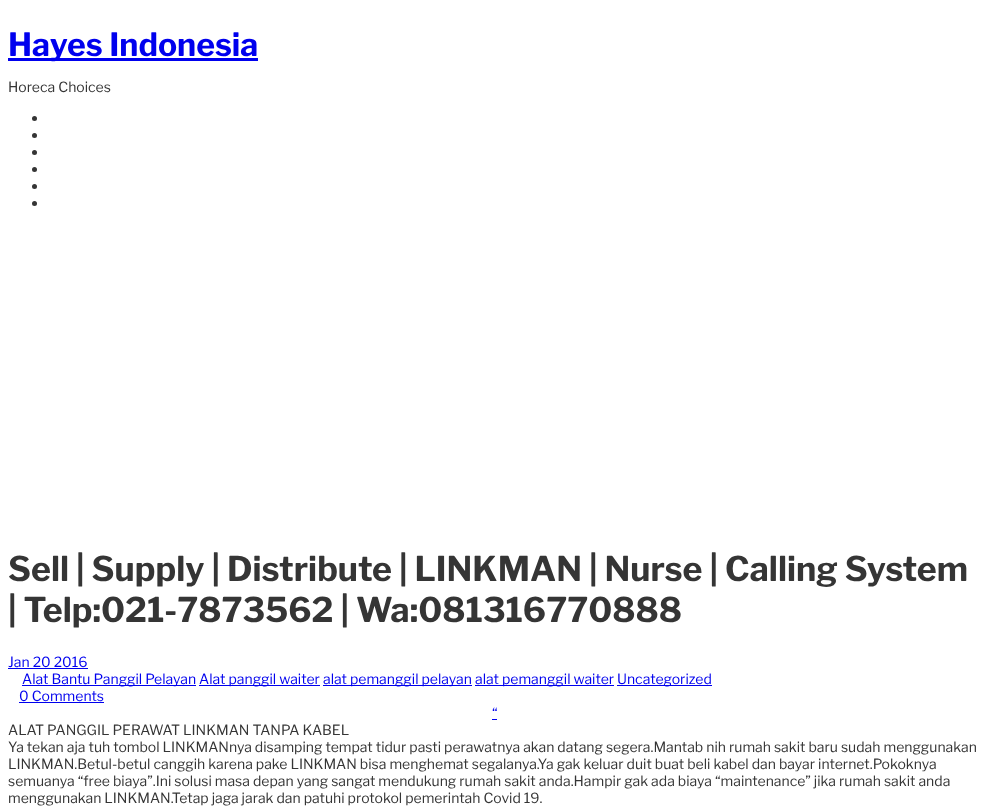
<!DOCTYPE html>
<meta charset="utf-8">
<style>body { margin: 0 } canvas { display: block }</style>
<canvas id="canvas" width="989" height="807"></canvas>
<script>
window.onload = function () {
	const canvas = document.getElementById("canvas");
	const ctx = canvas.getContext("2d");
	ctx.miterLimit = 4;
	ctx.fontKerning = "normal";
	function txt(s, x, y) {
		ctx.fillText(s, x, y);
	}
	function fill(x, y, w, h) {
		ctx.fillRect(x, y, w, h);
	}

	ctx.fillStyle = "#FFFFFF";
	fill(0, 0, 989, 807);
	ctx.fillStyle = "#0000EE";
	fill(8, 58, 250, 3);
	ctx.fillStyle = "#353535";
	ctx.beginPath();
	ctx.arc(34.5, 118.5, 2.5, 0, Math.PI * 2);
	ctx.fill();
	ctx.beginPath();
	ctx.arc(34.5, 135.5, 2.5, 0, Math.PI * 2);
	ctx.fill();
	ctx.beginPath();
	ctx.arc(34.5, 152.5, 2.5, 0, Math.PI * 2);
	ctx.fill();
	ctx.beginPath();
	ctx.arc(34.5, 169.5, 2.5, 0, Math.PI * 2);
	ctx.fill();
	ctx.beginPath();
	ctx.arc(34.5, 186.5, 2.5, 0, Math.PI * 2);
	ctx.fill();
	ctx.beginPath();
	ctx.arc(34.5, 203.5, 2.5, 0, Math.PI * 2);
	ctx.fill();
	ctx.fillStyle = "#0000EE";
	fill(8, 668, 80, 1);
	fill(22, 685, 174, 1);
	fill(199, 685, 121, 1);
	fill(323, 685, 149, 1);
	fill(475, 685, 139, 1);
	fill(617, 685, 95, 1);
	fill(19, 702, 85, 1);
	fill(492, 719, 5, 1);
	ctx.font = "bold 32px Libre Franklin";
	txt("Hayes Indonesia", 8, 56);
	ctx.font = "14px Libre Franklin";
	ctx.fillStyle = "#353535";
	txt("Horeca Choices", 8, 92);
	ctx.font = "bold 34px Libre Franklin";
	txt("Sell | Supply | Distribute | LINKMAN | Nurse | Calling System", 8, 581);
	txt("| Telp:021-7873562 | Wa:081316770888", 8, 622);
	ctx.font = "14px Libre Franklin";
	ctx.fillStyle = "#0000EE";
	txt("Jan 20 2016", 8, 667);
	txt("Alat Bantu Panggil Pelayan", 22, 684);
	txt("Alat panggil waiter", 199, 684);
	txt("alat pemanggil pelayan", 323, 684);
	txt("alat pemanggil waiter", 475, 684);
	txt("Uncategorized", 617, 684);
	txt("0 Comments", 19, 701);
	txt("“", 492, 718);
	ctx.fillStyle = "#353535";
	txt("ALAT PANGGIL PERAWAT LINKMAN TANPA KABEL", 8, 735);
	txt("Ya tekan aja tuh tombol LINKMANnya disamping tempat tidur pasti perawatnya akan datang segera.Mantab nih rumah sakit baru sudah menggunakan", 8, 752);
	txt("LINKMAN.Betul-betul canggih karena pake LINKMAN bisa menghemat segalanya.Ya gak keluar duit buat beli kabel dan bayar internet.Pokoknya", 8, 769);
	txt("semuanya “free biaya”.Ini solusi masa depan yang sangat mendukung rumah sakit anda.Hampir gak ada biaya “maintenance” jika rumah sakit anda", 8, 786);
	txt("menggunakan LINKMAN.Tetap jaga jarak dan patuhi protokol pemerintah Covid 19.", 8, 803);
};
</script>
